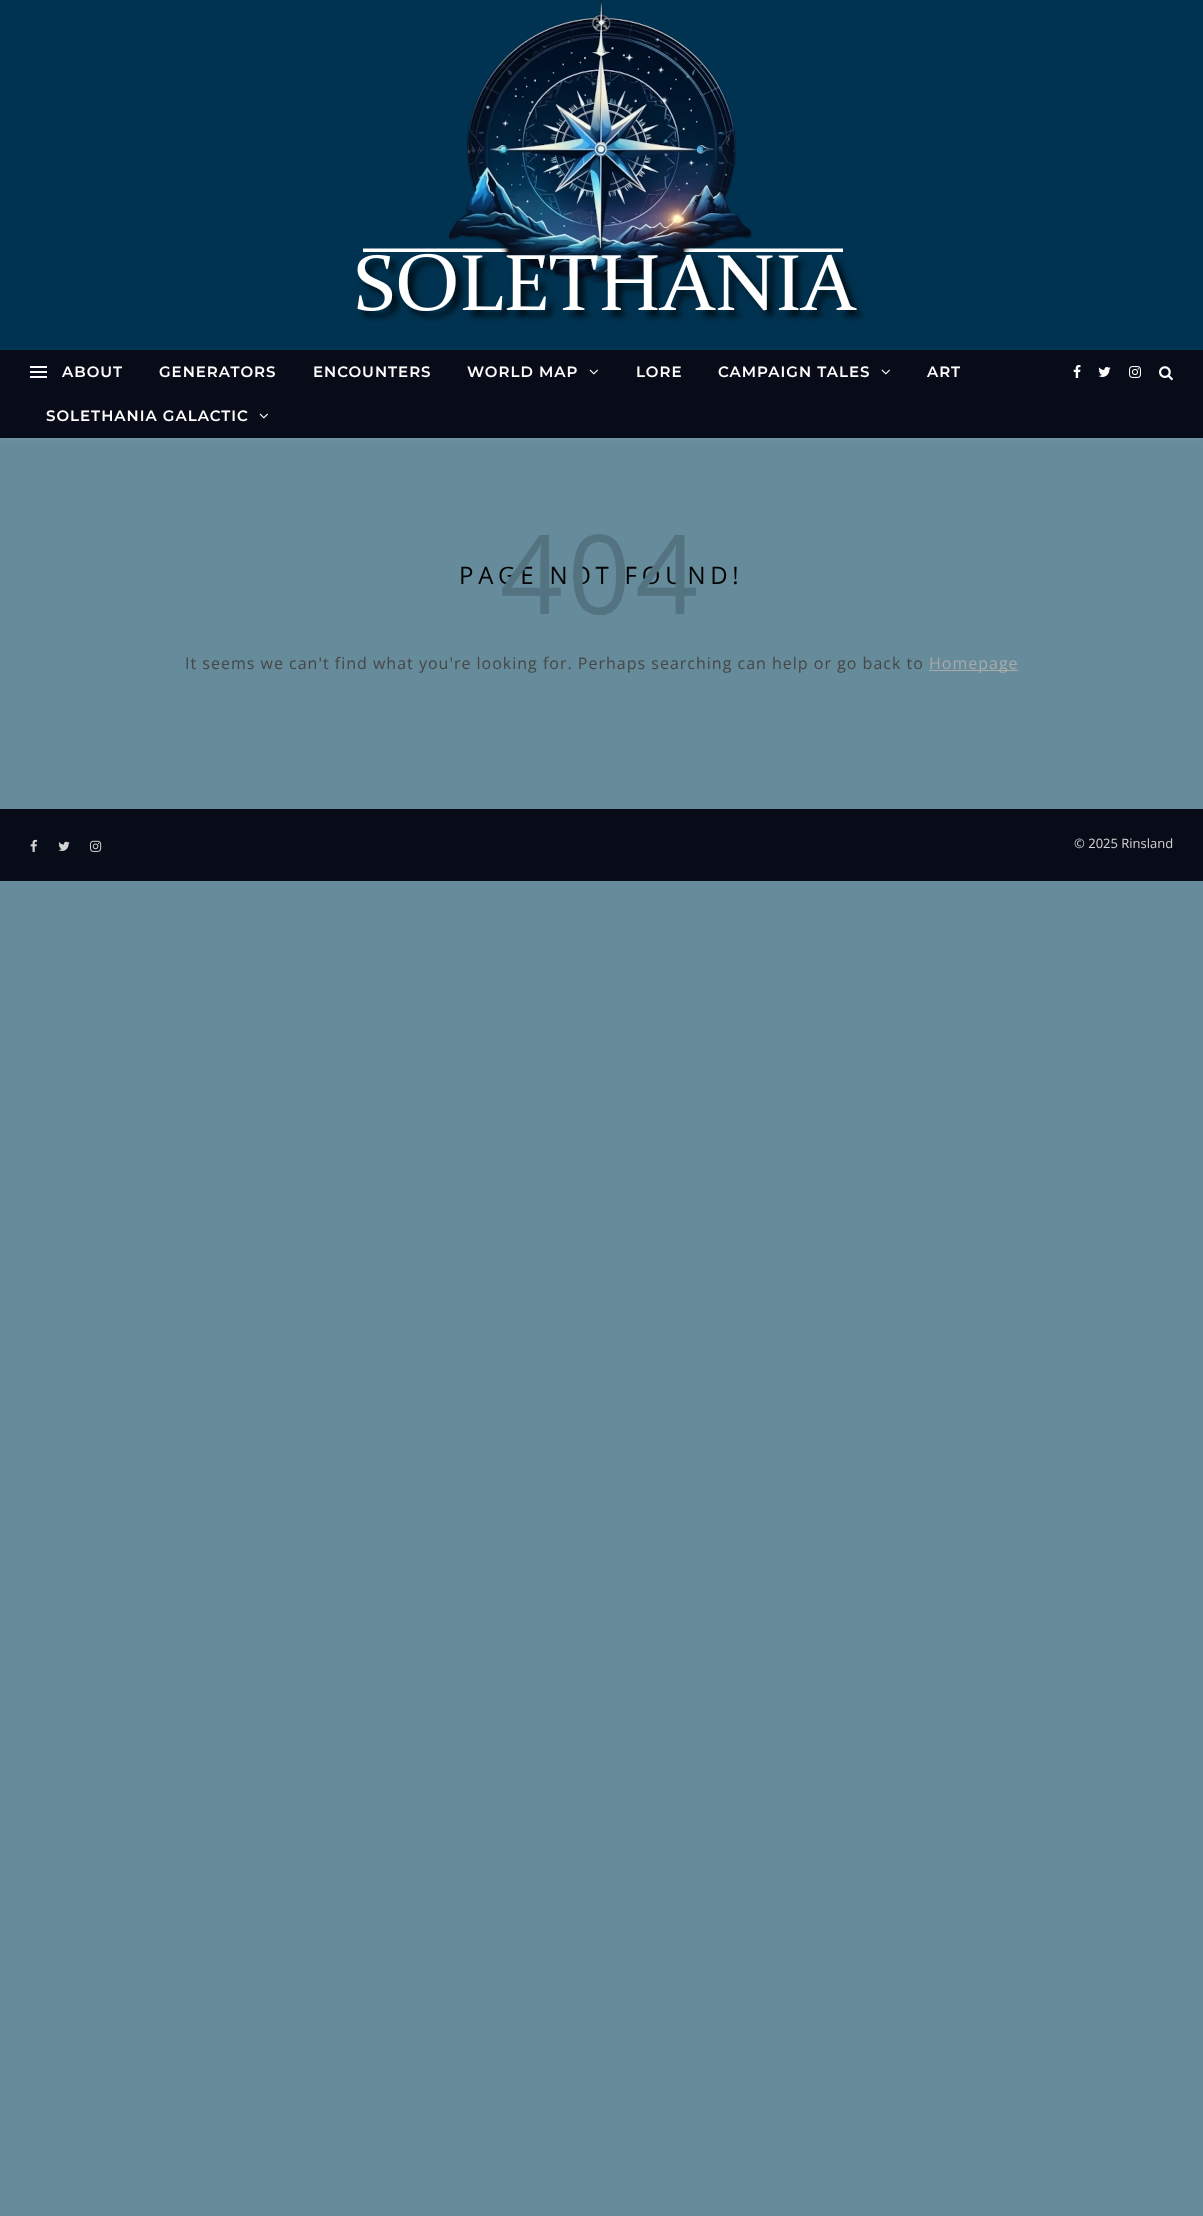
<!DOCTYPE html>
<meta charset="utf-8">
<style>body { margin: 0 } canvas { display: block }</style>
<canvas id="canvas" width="1203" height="2216"></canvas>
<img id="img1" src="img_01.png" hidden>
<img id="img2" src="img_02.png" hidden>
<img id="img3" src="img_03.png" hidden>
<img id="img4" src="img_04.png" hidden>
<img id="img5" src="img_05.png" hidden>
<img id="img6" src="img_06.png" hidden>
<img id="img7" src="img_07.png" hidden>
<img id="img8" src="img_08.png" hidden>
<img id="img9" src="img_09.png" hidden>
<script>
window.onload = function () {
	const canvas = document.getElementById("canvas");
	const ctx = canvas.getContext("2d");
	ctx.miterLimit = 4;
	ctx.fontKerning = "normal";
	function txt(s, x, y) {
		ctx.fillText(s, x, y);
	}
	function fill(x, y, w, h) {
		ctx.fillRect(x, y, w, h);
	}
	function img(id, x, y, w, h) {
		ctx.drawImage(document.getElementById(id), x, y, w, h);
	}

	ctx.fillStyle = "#668B9B";
	fill(0, 0, 1203, 2216);
	ctx.fillStyle = "#003351";
	fill(0, 0, 1203, 350);
	img("img1", 357, 0, 508, 322);
	ctx.fillStyle = "rgba(255, 255, 255, 0.1)";
	ctx.filter = "blur(2.5px)";
	ctx.beginPath();
	ctx.rect(0, 351, 1203, 88);
	ctx.fill();
	ctx.filter = "none";
	ctx.fillStyle = "#080C18";
	fill(0, 350, 1203, 88);
	ctx.fillStyle = "#FFFFFF";
	fill(30, 366, 17, 2);
	fill(30, 371, 17, 2);
	fill(30, 376, 17, 2);
	img("img2", 589, 369, 9, 6);
	img("img2", 881, 369, 9, 6);
	img("img2", 259, 413, 9, 6);
	img("img3", 1073, 365, 8, 13);
	img("img4", 1098, 367, 13, 10);
	img("img5", 1129, 366, 12, 12);
	img("img6", 1159, 366, 14, 15);
	ctx.fillStyle = "#AAAAAA";
	fill(929, 670, 89, 1);
	ctx.fillStyle = "#080C18";
	fill(0, 809, 1203, 72);
	img("img7", 30, 839, 7, 13);
	img("img8", 58, 841, 12, 10);
	img("img9", 90, 840, 12, 12);
	ctx.letterSpacing = "1px";
	ctx.font = "600 15px Montserrat";
	ctx.fillStyle = "#FFFFFF";
	txt("ABOUT", 62, 377);
	txt("GENERATORS", 159, 377);
	txt("ENCOUNTERS", 313, 377);
	txt("WORLD MAP", 467, 377);
	txt("LORE", 636, 377);
	txt("CAMPAIGN TALES", 718, 377);
	txt("ART", 927, 377);
	txt("SOLETHANIA GALACTIC", 46, 421);
	ctx.letterSpacing = "4.75px";
	ctx.font = "24px Open Sans";
	ctx.fillStyle = "#030303";
	txt("PAGE NOT FOUND!", 459, 584);
	ctx.font = "110px Open Sans";
	ctx.fillStyle = "#547380";
	txt("404", 500, 614);
	ctx.letterSpacing = "1px";
	ctx.font = "16px Open Sans";
	ctx.fillStyle = "#464646";
	txt("It seems we can't find what you're looking for. Perhaps searching can help or go back to", 185, 669);
	ctx.fillStyle = "#AAAAAA";
	txt("Homepage", 929, 669);
	ctx.letterSpacing = "0px";
	ctx.font = "13px Open Sans";
	ctx.fillStyle = "#D3D3D3";
	txt("© 2025 Rinsland", 1074, 848);
};
</script>
